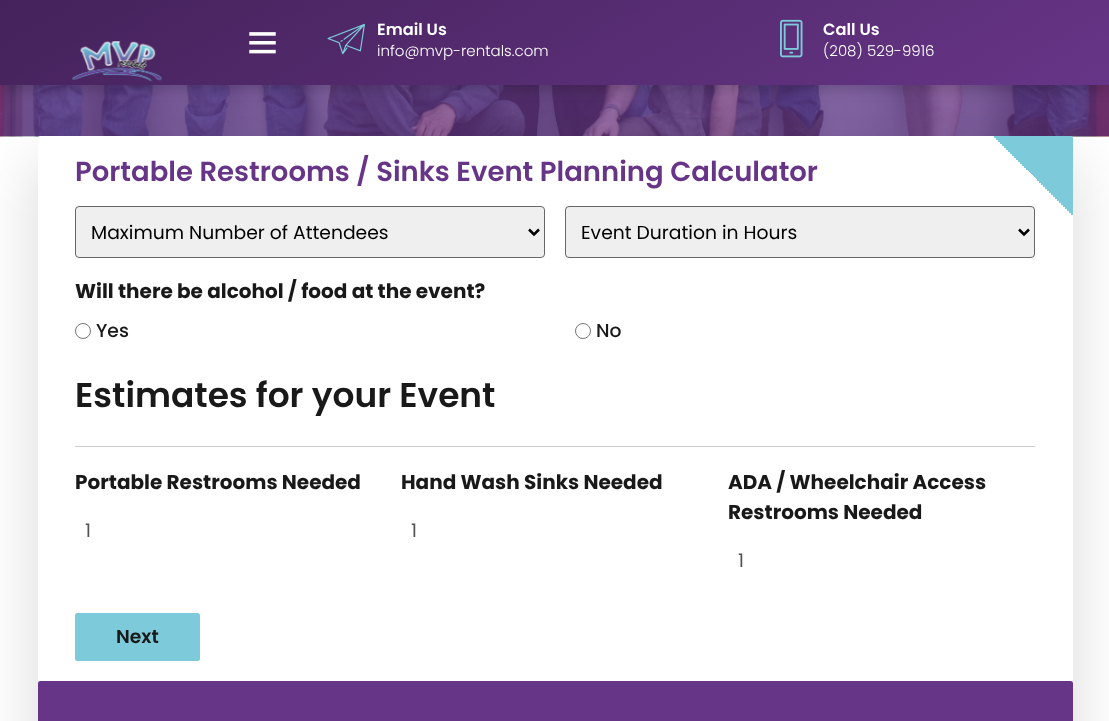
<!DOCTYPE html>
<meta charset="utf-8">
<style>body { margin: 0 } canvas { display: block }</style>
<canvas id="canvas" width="1109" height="721"></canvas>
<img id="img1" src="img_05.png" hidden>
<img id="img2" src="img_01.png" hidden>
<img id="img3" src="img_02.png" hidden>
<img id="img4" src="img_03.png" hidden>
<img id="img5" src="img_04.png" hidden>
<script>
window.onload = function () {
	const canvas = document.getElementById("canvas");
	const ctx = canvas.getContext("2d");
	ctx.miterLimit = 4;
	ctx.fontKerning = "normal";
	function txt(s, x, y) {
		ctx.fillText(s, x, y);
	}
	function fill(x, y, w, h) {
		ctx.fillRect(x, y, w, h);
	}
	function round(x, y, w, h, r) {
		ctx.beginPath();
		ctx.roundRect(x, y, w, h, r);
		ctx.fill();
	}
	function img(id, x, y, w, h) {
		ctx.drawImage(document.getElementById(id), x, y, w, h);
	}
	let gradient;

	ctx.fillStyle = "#FFFFFF";
	fill(0, 0, 1109, 721);
	img("img1", 0, 85, 1109, 52);
	ctx.fillStyle = "rgba(0, 0, 0, 0.15)";
	ctx.filter = "blur(6px)";
	ctx.beginPath();
	ctx.rect(0, 6, 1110, 85);
	ctx.fill();
	ctx.filter = "none";
	ctx.filter = "blur(31px)";
	ctx.beginPath();
	ctx.rect(38, 161, 1035, 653);
	ctx.fill();
	ctx.filter = "none";
	gradient = ctx.createLinearGradient(398, -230, 712, 315);
	gradient.addColorStop(0, "#44225A");
	gradient.addColorStop(1, "#673587");
	ctx.fillStyle = gradient;
	fill(0, 0, 1109, 85);
	img("img2", 72, 41, 90, 41);
	img("img3", 249, 32, 27, 22);
	img("img4", 327, 23, 38, 32);
	img("img5", 780, 19, 23, 39);
	gradient = ctx.createLinearGradient(950, 14, 160, 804);
	gradient.addColorStop(0.05, "#7DCADA");
	gradient.addColorStop(0.05, "#FFFFFF");
	ctx.fillStyle = gradient;
	round(38, 136, 1035, 545, 2.5);
	ctx.fillStyle = "#EFEFEF";
	ctx.beginPath();
	ctx.roundRect(75.5, 206.5, 469, 51, 3.5);
	ctx.fill();
	ctx.strokeStyle = "#666666";
	ctx.stroke();
	ctx.beginPath();
	ctx.moveTo(529, 229.5);
	ctx.lineTo(534, 234.5);
	ctx.lineTo(539, 229.5);
	ctx.strokeStyle = "#000000";
	ctx.lineWidth = 2.5;
	ctx.stroke();
	ctx.beginPath();
	ctx.roundRect(565.5, 206.5, 469, 51, 3.5);
	ctx.fill();
	ctx.strokeStyle = "#666666";
	ctx.lineWidth = 1;
	ctx.stroke();
	ctx.beginPath();
	ctx.moveTo(1019, 229.5);
	ctx.lineTo(1024, 234.5);
	ctx.lineTo(1029, 229.5);
	ctx.strokeStyle = "#000000";
	ctx.lineWidth = 2.5;
	ctx.stroke();
	ctx.beginPath();
	ctx.arc(83, 331, 7.5, 0, Math.PI * 2);
	ctx.strokeStyle = "#767676";
	ctx.lineWidth = 1;
	ctx.stroke();
	ctx.beginPath();
	ctx.arc(583, 331, 7.5, 0, Math.PI * 2);
	ctx.stroke();
	ctx.fillStyle = "#CCCCCC";
	fill(75, 446, 960, 1);
	ctx.fillStyle = "#7DCADA";
	round(75, 613, 125, 48, 2.5);
	ctx.fillStyle = "#673587";
	round(38, 681, 1035, 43, 2.5);
	ctx.font = "600 16.25px Poppins";
	ctx.fillStyle = "#FFFFFF";
	txt("Email Us", 377, 35);
	ctx.font = "300 15px Poppins";
	txt("info@mvp-rentals.com", 377, 56);
	ctx.font = "600 16.25px Poppins";
	txt("Call Us", 823, 35);
	ctx.font = "300 15px Poppins";
	txt("(208) 529-9916", 823, 56);
	ctx.font = "600 27.5px Poppins";
	ctx.fillStyle = "#673587";
	txt("Portable Restrooms / Sinks Event Planning Calculator", 75, 181);
	ctx.font = "18.75px Poppins";
	ctx.fillStyle = "#000000";
	txt("Maximum Number of Attendees", 91, 239);
	txt("Event Duration in Hours", 581, 239);
	ctx.font = "bold 20px Poppins";
	ctx.fillStyle = "#191919";
	txt("Will there be alcohol / food at the event?", 75, 298);
	ctx.font = "500 18.75px Poppins";
	txt("Yes", 96, 337);
	txt("No", 596, 337);
	ctx.font = "600 34.4px Poppins";
	txt("Estimates for your Event", 75, 407);
	ctx.font = "bold 20px Poppins";
	txt("Portable Restrooms Needed", 75, 489);
	ctx.font = "18.75px Poppins";
	ctx.fillStyle = "#535353";
	txt("1", 85, 537);
	ctx.font = "bold 20px Poppins";
	ctx.fillStyle = "#191919";
	txt("Hand Wash Sinks Needed", 401, 489);
	ctx.font = "18.75px Poppins";
	ctx.fillStyle = "#535353";
	txt("1", 411, 537);
	ctx.font = "bold 20px Poppins";
	ctx.fillStyle = "#191919";
	txt("ADA / Wheelchair Access", 728, 489);
	txt("Restrooms Needed", 728, 519);
	ctx.font = "18.75px Poppins";
	ctx.fillStyle = "#535353";
	txt("1", 738, 567);
	ctx.font = "600 18.75px Poppins";
	ctx.fillStyle = "#191919";
	txt("Next", 116, 643);
};
</script>
